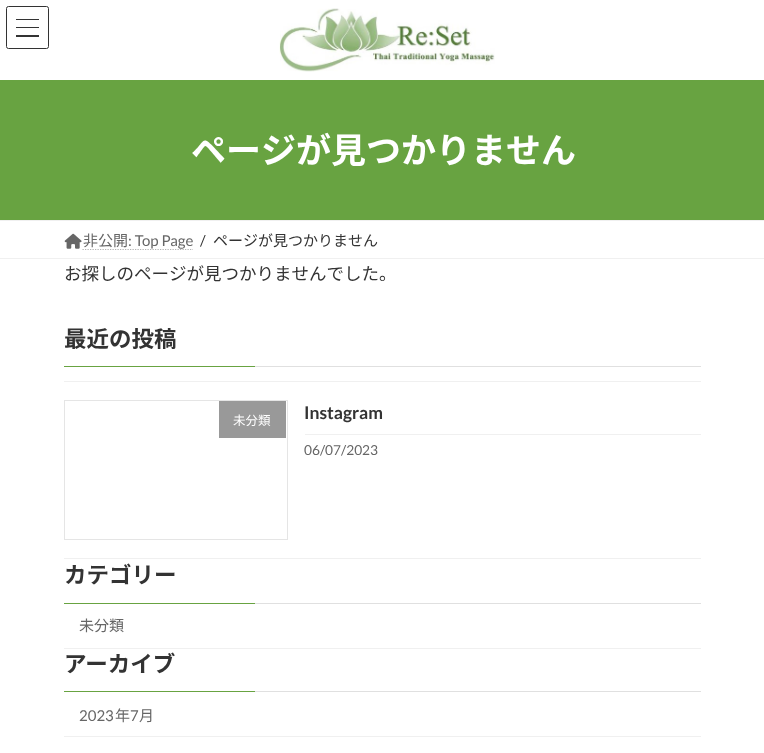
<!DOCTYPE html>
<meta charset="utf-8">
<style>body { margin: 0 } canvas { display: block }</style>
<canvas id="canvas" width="764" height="753"></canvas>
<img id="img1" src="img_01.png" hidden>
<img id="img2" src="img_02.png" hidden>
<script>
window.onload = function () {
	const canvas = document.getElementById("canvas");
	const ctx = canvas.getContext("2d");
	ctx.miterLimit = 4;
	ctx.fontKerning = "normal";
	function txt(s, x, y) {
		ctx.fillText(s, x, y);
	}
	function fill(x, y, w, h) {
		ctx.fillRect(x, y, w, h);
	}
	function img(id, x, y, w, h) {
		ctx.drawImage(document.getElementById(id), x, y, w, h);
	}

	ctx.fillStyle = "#FFFFFF";
	fill(0, 0, 764, 753);
	ctx.fillStyle = "#333333";
	fill(16, 19, 23, 1);
	fill(16, 27, 23, 1);
	fill(16, 35, 23, 2);
	ctx.beginPath();
	ctx.roundRect(6.5, 6.5, 42, 42, 2);
	ctx.strokeStyle = "#333333";
	ctx.stroke();
	img("img1", 279, 8, 216, 64);
	ctx.fillStyle = "#68A341";
	fill(0, 80, 764, 140);
	ctx.fillStyle = "#F0F0F0";
	fill(0, 220, 764, 1);
	fill(0, 258, 764, 1);
	img("img2", 64, 233, 18, 16);
	ctx.beginPath();
	ctx.moveTo(82.5, 249.5);
	ctx.lineTo(193, 249.5);
	ctx.strokeStyle = "#B3B3B3";
	ctx.lineWidth = 1.2;
	ctx.setLineDash([1.25, 1.25]);
	ctx.stroke();
	ctx.fillStyle = "#E0E0E0";
	fill(255, 366, 446, 1);
	ctx.fillStyle = "#68A341";
	fill(64, 366, 191, 1);
	ctx.fillStyle = "#F0F0F0";
	fill(64, 381, 637, 1);
	fill(64, 558, 637, 1);
	ctx.strokeStyle = "#E5E5E5";
	ctx.lineWidth = 1;
	ctx.setLineDash([]);
	ctx.strokeRect(64.5, 400.5, 223, 139);
	ctx.fillStyle = "#999999";
	fill(219, 401, 67, 37);
	ctx.fillStyle = "#F0F0F0";
	fill(305, 434, 396, 1);
	ctx.fillStyle = "#E0E0E0";
	fill(255, 603, 446, 1);
	ctx.fillStyle = "#68A341";
	fill(64, 603, 191, 1);
	ctx.fillStyle = "#F0F0F0";
	fill(64, 648, 637, 1);
	ctx.fillStyle = "#E0E0E0";
	fill(255, 691, 446, 1);
	ctx.fillStyle = "#68A341";
	fill(64, 691, 191, 1);
	ctx.fillStyle = "#F0F0F0";
	fill(64, 736, 637, 1);
	ctx.font = "bold 35px Noto Sans JP";
	ctx.fillStyle = "#FFFFFF";
	txt("ページが見つかりません", 191, 163);
	ctx.font = "15px Noto Sans JP";
	ctx.fillStyle = "#666666";
	txt("非公開", 83, 246);
	ctx.font = "15px Lato";
	txt(": Top Page", 128, 246);
	ctx.fillStyle = "#333333";
	txt("/", 200, 246);
	ctx.font = "15px Noto Sans JP";
	txt("ページが見つかりません", 213, 246);
	ctx.font = "17.5px Noto Sans JP";
	txt("お探しのページが見つかりませんでした。", 64, 280);
	ctx.font = "bold 22.5px Noto Sans JP";
	txt("最近の投稿", 64, 347);
	ctx.font = "12.5px Noto Sans JP";
	ctx.fillStyle = "#FFFFFF";
	txt("未分類", 233, 425);
	ctx.font = "bold 17.5px Lato";
	ctx.fillStyle = "#333333";
	txt("Instagram", 304, 419);
	ctx.font = "13.75px Lato";
	ctx.fillStyle = "#666666";
	txt("06/07/2023", 304, 455);
	ctx.font = "bold 22.5px Noto Sans JP";
	ctx.fillStyle = "#333333";
	txt("カテゴリー", 64, 583);
	ctx.font = "15px Noto Sans JP";
	ctx.fillStyle = "#666666";
	txt("未分類", 79, 631);
	ctx.font = "bold 22.5px Noto Sans JP";
	ctx.fillStyle = "#333333";
	txt("アーカイブ", 64, 672);
	ctx.font = "15px Lato";
	ctx.fillStyle = "#666666";
	txt("2023", 79, 721);
	ctx.font = "15px Noto Sans JP";
	txt("年", 115, 721);
	ctx.font = "15px Lato";
	txt("7", 130, 721);
	ctx.font = "15px Noto Sans JP";
	txt("月", 139, 721);
};
</script>
